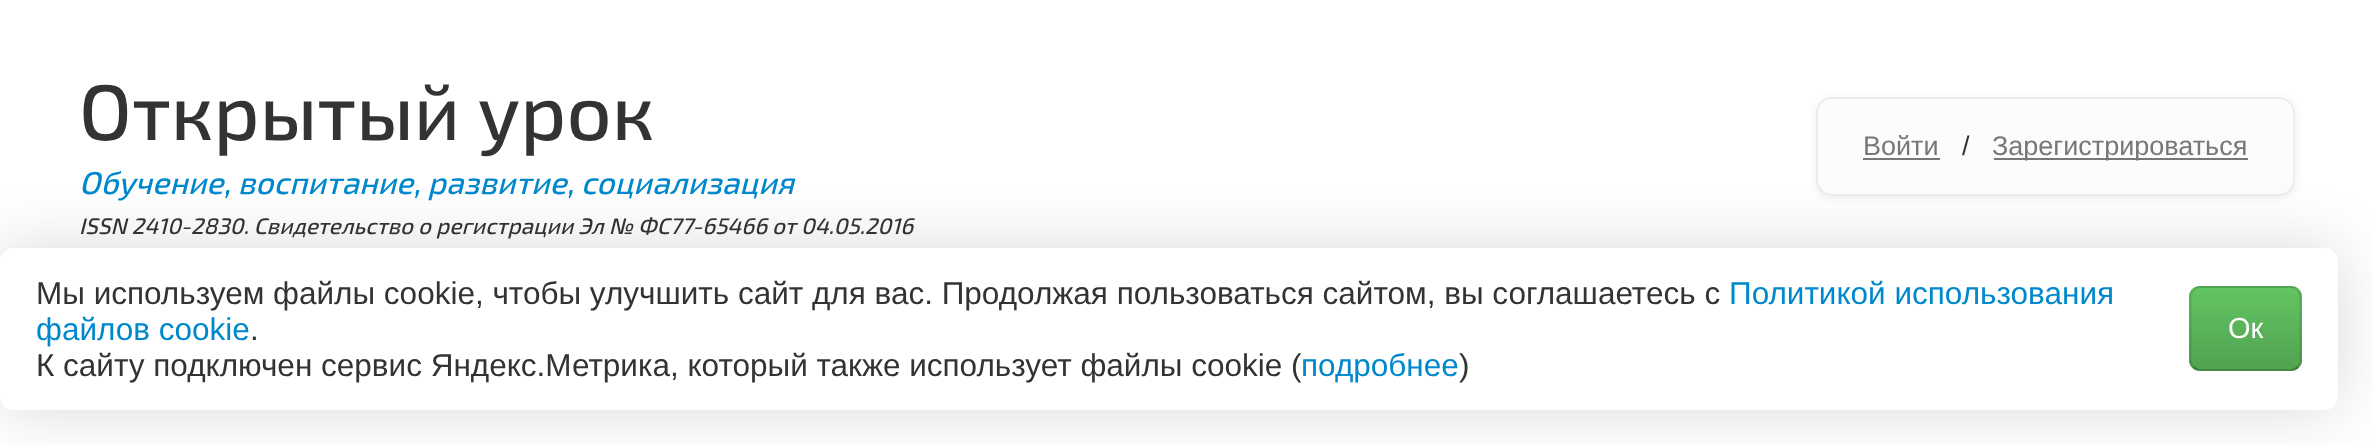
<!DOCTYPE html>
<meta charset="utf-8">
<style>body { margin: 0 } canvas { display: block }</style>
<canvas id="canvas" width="2372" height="445"></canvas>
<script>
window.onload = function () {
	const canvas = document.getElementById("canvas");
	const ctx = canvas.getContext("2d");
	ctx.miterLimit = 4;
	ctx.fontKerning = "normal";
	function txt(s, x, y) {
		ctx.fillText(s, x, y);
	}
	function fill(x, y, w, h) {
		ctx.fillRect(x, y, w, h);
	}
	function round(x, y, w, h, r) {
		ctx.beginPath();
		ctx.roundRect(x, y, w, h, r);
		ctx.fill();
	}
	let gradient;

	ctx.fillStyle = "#FFFFFF";
	fill(0, 0, 2372, 445);
	ctx.fillStyle = "rgba(0, 0, 0, 0.07)";
	ctx.filter = "blur(4.5px)";
	ctx.beginPath();
	ctx.roundRect(1816, 99, 479, 99, 16);
	ctx.fill();
	ctx.filter = "none";
	ctx.fillStyle = "#FCFCFC";
	ctx.beginPath();
	ctx.roundRect(1817, 98, 477, 97, 15);
	ctx.fill();
	ctx.strokeStyle = "#EEEBEB";
	ctx.lineWidth = 2;
	ctx.stroke();
	ctx.fillStyle = "#777777";
	fill(1863, 158, 77, 2);
	fill(1994, 158, 254, 2);
	ctx.fillStyle = "rgba(5, 0, 31, 0.15)";
	ctx.filter = "blur(31.5px)";
	ctx.beginPath();
	ctx.roundRect(0, 248, 2338, 162, 14);
	ctx.fill();
	ctx.filter = "none";
	ctx.fillStyle = "#FFFFFF";
	round(0, 248, 2338, 162, 14);
	ctx.fillStyle = "#5BB75B";
	round(2189, 286, 113, 85, 11);
	ctx.save();
	ctx.beginPath();
	ctx.roundRect(2189, 286, 113, 85, 11);
	ctx.clip();
	gradient = ctx.createLinearGradient(2246, 288, 2246, 369);
	gradient.addColorStop(0, "#62C462");
	gradient.addColorStop(1, "#51A351");
	ctx.fillStyle = gradient;
	fill(2189, 288, 113, 81);
	ctx.restore();
	ctx.beginPath();
	ctx.moveTo(2297.5, 367);
	ctx.bezierCurveTo(2296, 369, 2293, 370, 2290.5, 370);
	ctx.lineTo(2200.5, 370);
	ctx.bezierCurveTo(2198, 370, 2195, 369, 2193.5, 367);
	ctx.strokeStyle = "rgba(0, 0, 0, 0.25)";
	ctx.lineWidth = 2.2;
	ctx.stroke();
	ctx.beginPath();
	ctx.moveTo(2193.5, 367);
	ctx.bezierCurveTo(2191.5, 365.5, 2190.5, 362.5, 2190.5, 360);
	ctx.lineTo(2190.5, 297);
	ctx.bezierCurveTo(2190.5, 294.5, 2191.5, 291.5, 2193.5, 290);
	ctx.bezierCurveTo(2195, 288, 2198, 287, 2200.5, 287);
	ctx.lineTo(2290.5, 287);
	ctx.bezierCurveTo(2293, 287, 2296, 288, 2297.5, 290);
	ctx.bezierCurveTo(2299.5, 291.5, 2300.5, 294.5, 2300.5, 297);
	ctx.lineTo(2300.5, 360);
	ctx.bezierCurveTo(2300.5, 362.5, 2299.5, 365.5, 2297.5, 367);
	ctx.strokeStyle = "rgba(0, 0, 0, 0.1)";
	ctx.stroke();
	ctx.font = "500 78.75px 'Exo 2'";
	ctx.fillStyle = "#333333";
	txt("Открытый урок", 79, 140);
	ctx.font = "italic 500 31.5px 'Exo 2'";
	ctx.fillStyle = "#0088CC";
	txt("Обучение, воспитание, развитие, социализация", 79, 194);
	ctx.font = "italic 500 22.5px 'Exo 2'";
	ctx.fillStyle = "#333333";
	txt("ISSN 2410-2830. Свидетельство о регистрации Эл № ФС77-65466 от 04.05.2016", 79, 234);
	ctx.font = "27px Liberation Sans";
	ctx.fillStyle = "#777777";
	txt("Войти", 1863, 155);
	ctx.fillStyle = "#333333";
	txt("/", 1962, 155);
	ctx.fillStyle = "#777777";
	txt("Зарегистрироваться", 1992, 155);
	ctx.font = "31.5px Liberation Sans";
	ctx.fillStyle = "#333333";
	txt("Мы используем файлы cookie, чтобы улучшить сайт для вас. Продолжая пользоваться сайтом, вы соглашаетесь с", 36, 304);
	ctx.fillStyle = "#0088CC";
	txt("Политикой использования", 1729, 304);
	txt("файлов cookie", 36, 340);
	ctx.fillStyle = "#333333";
	txt(".", 250, 340);
	txt("К сайту подключен сервис Яндекс.Метрика, который также использует файлы cookie (", 36, 376);
	ctx.fillStyle = "#0088CC";
	txt("подробнее", 1301, 376);
	ctx.fillStyle = "#333333";
	txt(")", 1459, 376);
	ctx.font = "29px Liberation Sans";
	ctx.fillStyle = "#FFFFFF";
	txt("Ок", 2228, 338);
};
</script>
